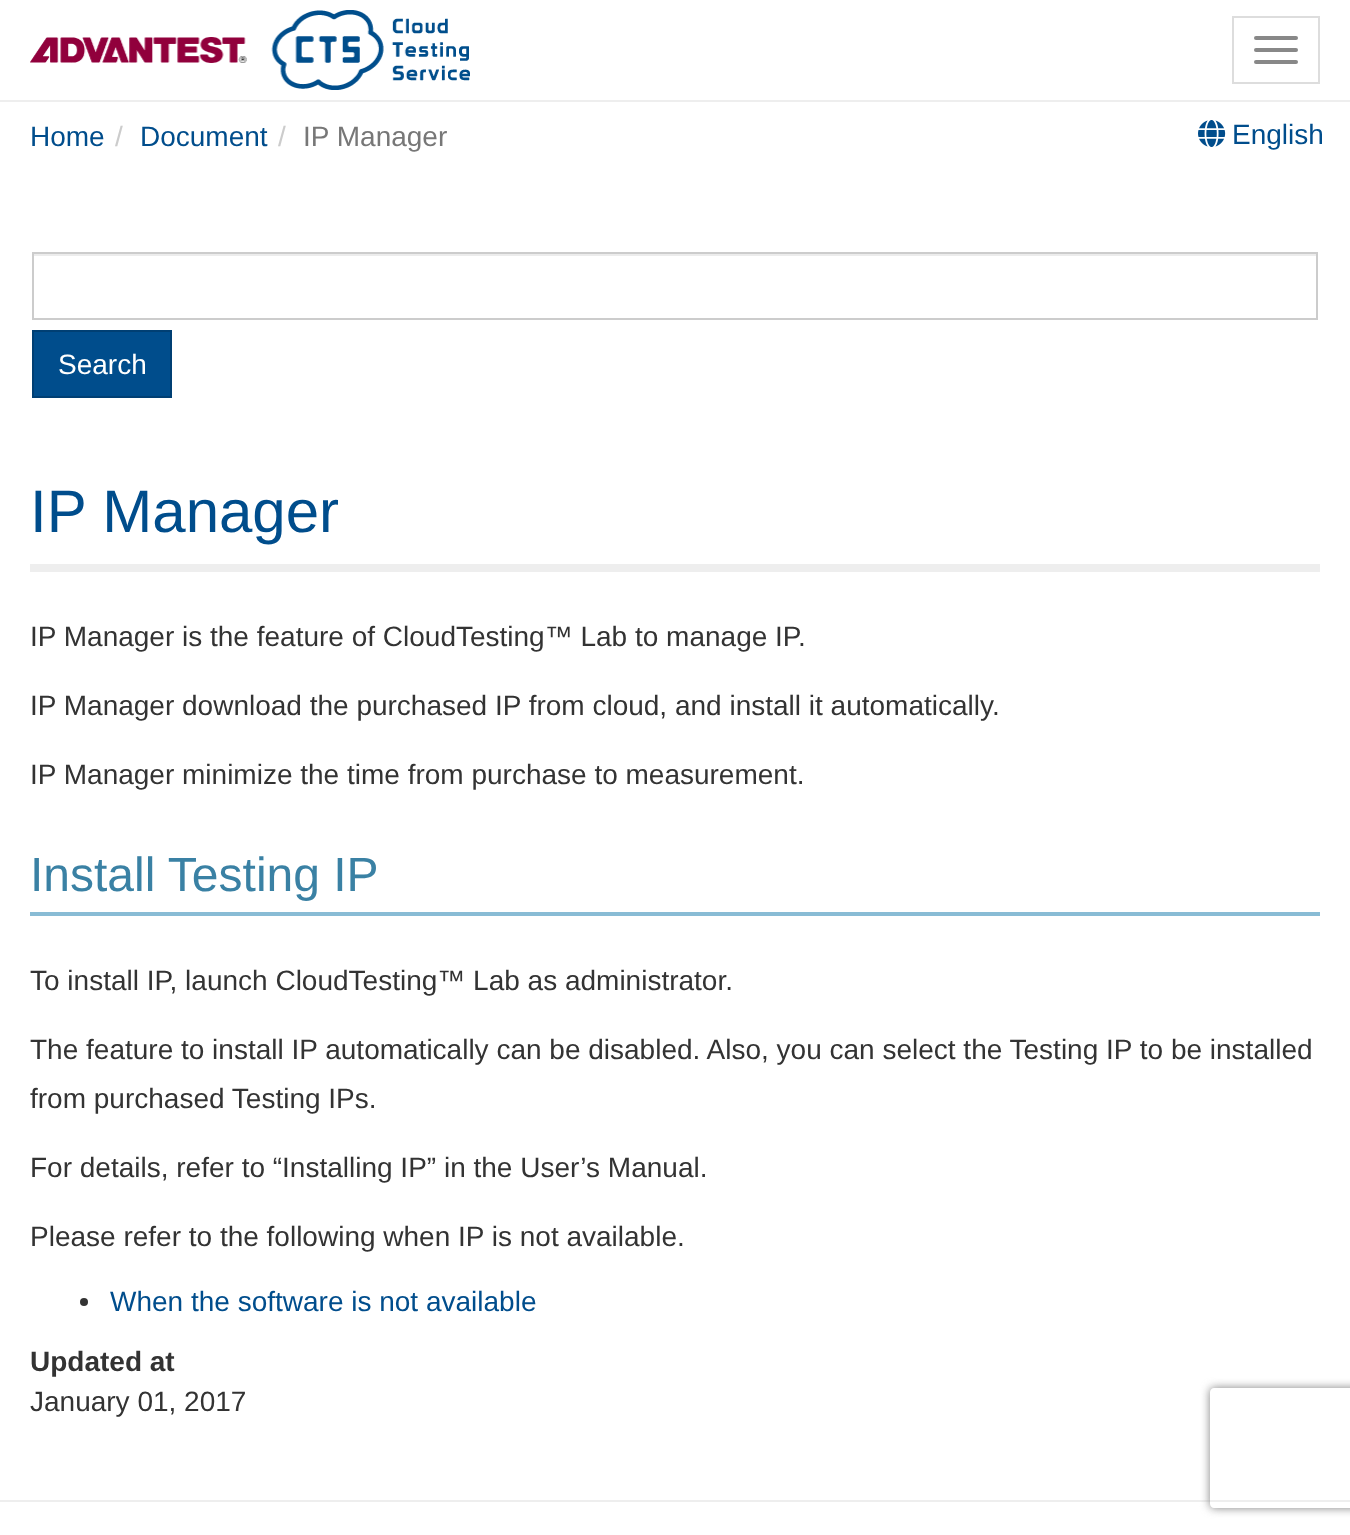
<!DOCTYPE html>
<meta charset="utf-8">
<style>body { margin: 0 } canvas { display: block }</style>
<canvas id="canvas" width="1350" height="1535"></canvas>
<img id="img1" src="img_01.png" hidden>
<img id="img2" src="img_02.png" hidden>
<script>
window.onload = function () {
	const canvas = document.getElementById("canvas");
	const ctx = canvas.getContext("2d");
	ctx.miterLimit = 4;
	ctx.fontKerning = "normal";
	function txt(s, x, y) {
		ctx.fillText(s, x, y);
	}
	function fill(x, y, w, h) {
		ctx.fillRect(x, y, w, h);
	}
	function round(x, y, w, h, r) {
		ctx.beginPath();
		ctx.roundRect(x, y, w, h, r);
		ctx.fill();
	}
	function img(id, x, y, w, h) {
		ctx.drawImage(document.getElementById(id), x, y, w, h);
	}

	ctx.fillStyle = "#FFFFFF";
	fill(0, 0, 1350, 1535);
	ctx.fillStyle = "#EEEEEE";
	fill(0, 100, 1350, 2);
	img("img1", 30, 10, 440, 80);
	ctx.strokeStyle = "#DDDDDD";
	ctx.lineWidth = 2;
	ctx.strokeRect(1233, 17, 86, 66);
	ctx.fillStyle = "#888888";
	round(1254, 36, 44, 4, 2);
	round(1254, 48, 44, 4, 2);
	round(1254, 60, 44, 4, 2);
	img("img2", 1198, 120, 28, 27);
	ctx.fillStyle = "#ECECEC";
	fill(34, 254, 1282, 2);
	ctx.strokeStyle = "#CCCCCC";
	ctx.strokeRect(33, 253, 1284, 66);
	ctx.fillStyle = "#004D8C";
	ctx.beginPath();
	ctx.rect(33, 331, 138, 66);
	ctx.fill();
	ctx.strokeStyle = "#003F73";
	ctx.stroke();
	ctx.fillStyle = "#EEEEEE";
	fill(30, 564, 1290, 8);
	ctx.fillStyle = "#89BCD5";
	fill(30, 912, 1290, 4);
	ctx.fillStyle = "#333333";
	ctx.beginPath();
	ctx.arc(84, 1302, 4, 0, Math.PI * 2);
	ctx.fill();
	ctx.fillStyle = "#EEEEEE";
	fill(0, 1500, 1350, 2);
	ctx.save();
	ctx.beginPath();
	ctx.moveTo(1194, 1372);
	ctx.lineTo(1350, 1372);
	ctx.lineTo(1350, 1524);
	ctx.lineTo(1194, 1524);
	ctx.closePath();
	ctx.moveTo(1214, 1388);
	ctx.lineTo(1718, 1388);
	ctx.bezierCurveTo(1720, 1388, 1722, 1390, 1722, 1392);
	ctx.lineTo(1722, 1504);
	ctx.bezierCurveTo(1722, 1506, 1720, 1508, 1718, 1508);
	ctx.lineTo(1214, 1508);
	ctx.bezierCurveTo(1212, 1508, 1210, 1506, 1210, 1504);
	ctx.lineTo(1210, 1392);
	ctx.bezierCurveTo(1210, 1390, 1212, 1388, 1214, 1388);
	ctx.closePath();
	ctx.clip("evenodd");
	ctx.fillStyle = "#808080";
	ctx.filter = "blur(5px)";
	ctx.beginPath();
	ctx.roundRect(1210, 1388, 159, 120, 4);
	ctx.fill();
	ctx.filter = "none";
	ctx.restore();
	ctx.font = "28px Liberation Sans";
	ctx.fillStyle = "#004D8C";
	txt("Home", 30, 146);
	ctx.fillStyle = "#CCCCCC";
	txt("/", 115, 146);
	ctx.fillStyle = "#004D8C";
	txt("Document", 140, 146);
	ctx.fillStyle = "#CCCCCC";
	txt("/", 278, 146);
	ctx.fillStyle = "#777777";
	txt("IP Manager", 303, 146);
	ctx.fillStyle = "#004D8C";
	txt("English", 1232, 144);
	ctx.fillStyle = "#FFFFFF";
	txt("Search", 58, 374);
	ctx.font = "60px Liberation Sans";
	ctx.fillStyle = "#004D8C";
	txt("IP Manager", 30, 532);
	ctx.font = "28px Liberation Sans";
	ctx.fillStyle = "#333333";
	txt("IP Manager is the feature of CloudTesting™ Lab to manage IP.", 30, 646);
	txt("IP Manager download the purchased IP from cloud, and install it automatically.", 30, 715);
	txt("IP Manager minimize the time from purchase to measurement.", 30, 784);
	ctx.font = "48px Liberation Sans";
	ctx.fillStyle = "#3A81A4";
	txt("Install Testing IP", 30, 891);
	ctx.font = "28px Liberation Sans";
	ctx.fillStyle = "#333333";
	txt("To install IP, launch CloudTesting™ Lab as administrator.", 30, 990);
	txt("The feature to install IP automatically can be disabled. Also, you can select the Testing IP to be installed", 30, 1059);
	txt("from purchased Testing IPs.", 30, 1108);
	txt("For details, refer to “Installing IP” in the User’s Manual.", 30, 1177);
	txt("Please refer to the following when IP is not available.", 30, 1246);
	ctx.fillStyle = "#004D8C";
	txt("When the software is not available", 110, 1311);
	ctx.font = "bold 28px Liberation Sans";
	ctx.fillStyle = "#333333";
	txt("Updated at", 30, 1371);
	ctx.font = "28px Liberation Sans";
	txt("January 01, 2017", 30, 1411);
};
</script>
